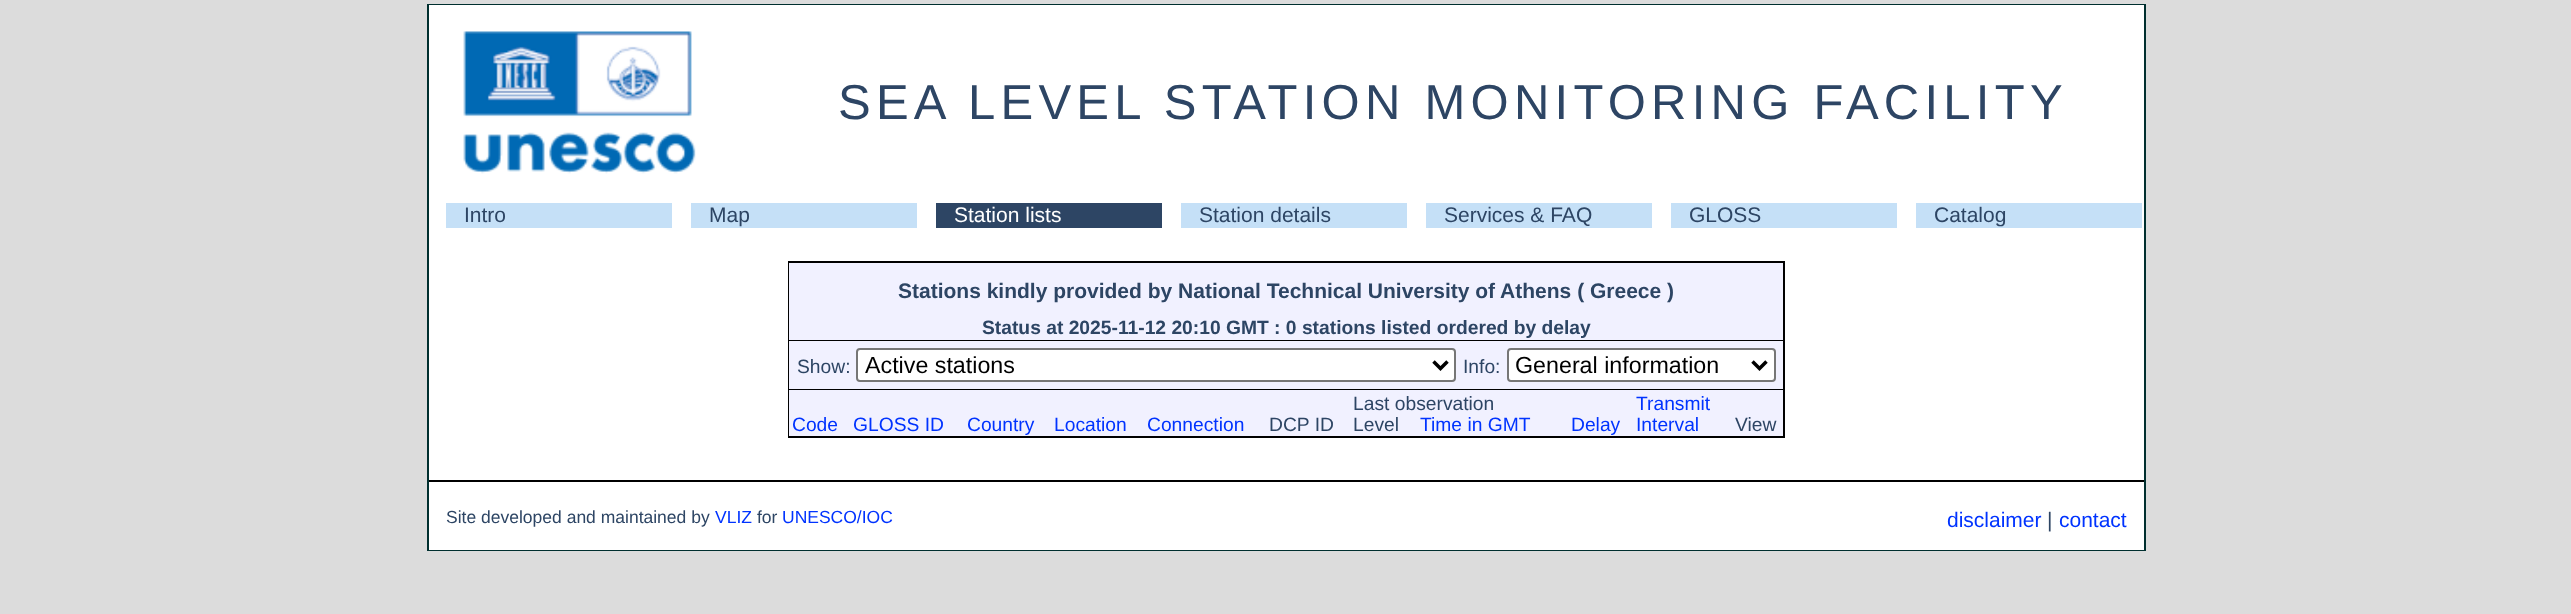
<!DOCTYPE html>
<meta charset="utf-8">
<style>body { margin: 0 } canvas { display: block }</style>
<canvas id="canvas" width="2571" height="614"></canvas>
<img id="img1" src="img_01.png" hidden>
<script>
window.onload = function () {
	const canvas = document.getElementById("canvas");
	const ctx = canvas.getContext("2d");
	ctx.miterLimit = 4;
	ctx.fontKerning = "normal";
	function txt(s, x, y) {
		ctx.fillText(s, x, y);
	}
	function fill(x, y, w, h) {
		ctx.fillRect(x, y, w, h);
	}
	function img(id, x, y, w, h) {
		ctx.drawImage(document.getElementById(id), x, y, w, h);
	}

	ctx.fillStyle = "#DCDCDC";
	fill(0, 0, 2571, 614);
	ctx.fillStyle = "#002F2F";
	fill(427, 4, 1719, 547);
	ctx.fillStyle = "#FFFFFF";
	fill(429, 5, 1715, 545);
	img("img1", 463, 31, 233, 143);
	ctx.fillStyle = "#C5E0F7";
	fill(446, 203, 226, 25);
	fill(691, 203, 226, 25);
	ctx.fillStyle = "#2D4564";
	fill(936, 203, 226, 25);
	ctx.fillStyle = "#C5E0F7";
	fill(1181, 203, 226, 25);
	fill(1426, 203, 226, 25);
	fill(1671, 203, 226, 25);
	fill(1916, 203, 226, 25);
	ctx.fillStyle = "#000000";
	fill(788, 261, 997, 177);
	ctx.fillStyle = "#F1F1FF";
	fill(789, 263, 994, 77);
	fill(789, 341, 994, 48);
	ctx.fillStyle = "#FFFFFF";
	ctx.beginPath();
	ctx.roundRect(857, 349, 598, 32, 3);
	ctx.fill();
	ctx.strokeStyle = "#767676";
	ctx.lineWidth = 2;
	ctx.stroke();
	ctx.beginPath();
	ctx.moveTo(1433.5, 361.5);
	ctx.lineTo(1440.5, 368.5);
	ctx.lineTo(1447.5, 361.5);
	ctx.strokeStyle = "#000000";
	ctx.lineWidth = 3.5;
	ctx.stroke();
	ctx.beginPath();
	ctx.roundRect(1508, 349, 267, 32, 3);
	ctx.fill();
	ctx.strokeStyle = "#767676";
	ctx.lineWidth = 2;
	ctx.stroke();
	ctx.beginPath();
	ctx.moveTo(1752.5, 361.5);
	ctx.lineTo(1759.5, 368.5);
	ctx.lineTo(1766.5, 361.5);
	ctx.strokeStyle = "#000000";
	ctx.lineWidth = 3.5;
	ctx.stroke();
	ctx.fillStyle = "#F1F1FF";
	fill(789, 390, 994, 46);
	ctx.fillStyle = "#000000";
	fill(429, 480, 1715, 2);
	ctx.letterSpacing = "5.25px";
	ctx.font = "49px Liberation Sans";
	ctx.fillStyle = "#2D4564";
	txt("SEA LEVEL STATION MONITORING FACILITY", 838, 119);
	ctx.letterSpacing = "0px";
	ctx.font = "21px Liberation Sans";
	txt("Intro", 464, 222);
	txt("Map", 709, 222);
	ctx.fillStyle = "#FFFFFF";
	txt("Station lists", 954, 222);
	ctx.fillStyle = "#2D4564";
	txt("Station details", 1199, 222);
	txt("Services & FAQ", 1444, 222);
	txt("GLOSS", 1689, 222);
	txt("Catalog", 1934, 222);
	ctx.font = "bold 21px Liberation Sans";
	txt("Stations kindly provided by National Technical University of Athens ( Greece )", 898, 298);
	ctx.font = "bold 19.25px Liberation Sans";
	txt("Status at 2025-11-12 20:10 GMT : 0 stations listed ordered by delay", 982, 334);
	ctx.font = "19.25px Liberation Sans";
	txt("Show:", 797, 373);
	ctx.font = "23.25px Liberation Sans";
	ctx.fillStyle = "#000000";
	txt("Active stations", 865, 373);
	ctx.font = "19.25px Liberation Sans";
	ctx.fillStyle = "#2D4564";
	txt("Info:", 1463, 373);
	ctx.font = "23.25px Liberation Sans";
	ctx.fillStyle = "#000000";
	txt("General information", 1515, 373);
	ctx.font = "19.25px Liberation Sans";
	ctx.fillStyle = "#0033FF";
	txt("Code", 792, 431);
	txt("GLOSS ID", 853, 431);
	txt("Country", 967, 431);
	txt("Location", 1054, 431);
	txt("Connection", 1147, 431);
	ctx.fillStyle = "#2D4564";
	txt("DCP ID", 1269, 431);
	txt("Last observation", 1353, 410);
	txt("Level", 1353, 431);
	ctx.fillStyle = "#0033FF";
	txt("Time in GMT", 1420, 431);
	txt("Delay", 1571, 431);
	txt("Transmit", 1636, 410);
	txt("Interval", 1636, 431);
	ctx.fillStyle = "#2D4564";
	txt("View", 1735, 431);
	ctx.font = "17.5px Liberation Sans";
	txt("Site developed and maintained by", 446, 523);
	ctx.fillStyle = "#0033FF";
	txt("VLIZ", 715, 523);
	ctx.fillStyle = "#2D4564";
	txt("for", 757, 523);
	ctx.fillStyle = "#0033FF";
	txt("UNESCO/IOC", 782, 523);
	ctx.font = "21px Liberation Sans";
	txt("disclaimer", 1947, 527);
	ctx.fillStyle = "#2D4564";
	txt("|", 2047, 527);
	ctx.fillStyle = "#0033FF";
	txt("contact", 2059, 527);
};
</script>
